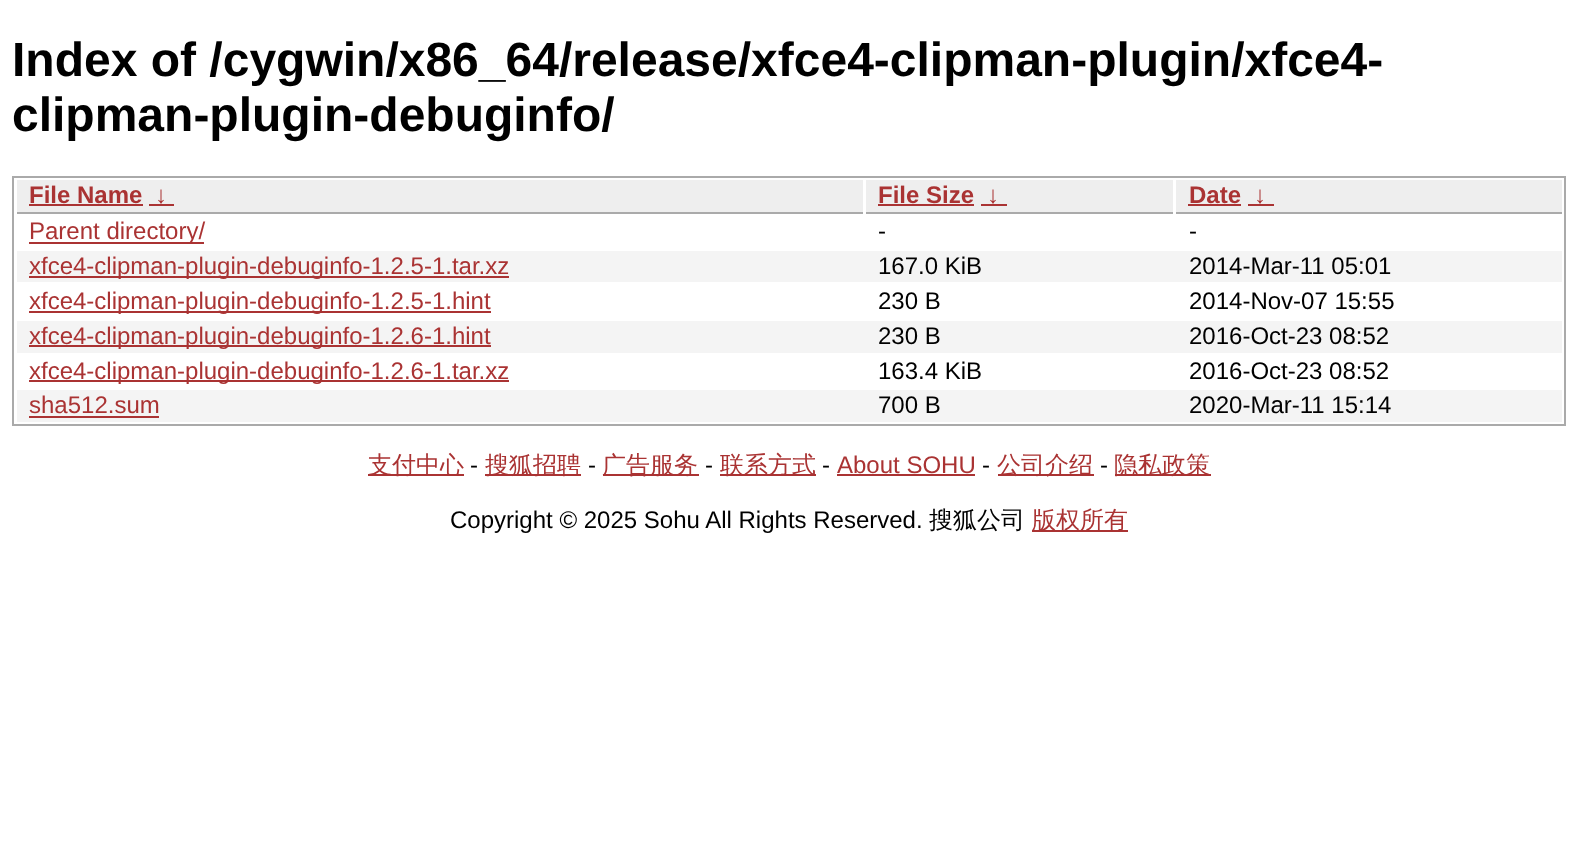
<!DOCTYPE html>
<meta charset="utf-8">
<style>body { margin: 0 } canvas { display: block }</style>
<canvas id="canvas" width="1578" height="853"></canvas>
<script>
window.onload = function () {
	const canvas = document.getElementById("canvas");
	const ctx = canvas.getContext("2d");
	ctx.miterLimit = 4;
	ctx.fontKerning = "normal";
	function txt(s, x, y) {
		ctx.fillText(s, x, y);
	}
	function fill(x, y, w, h) {
		ctx.fillRect(x, y, w, h);
	}

	ctx.fillStyle = "#FFFFFF";
	fill(0, 0, 1578, 853);
	ctx.strokeStyle = "#AAAAAA";
	ctx.lineWidth = 2;
	ctx.strokeRect(13, 177, 1552, 248);
	ctx.fillStyle = "#EEEEEE";
	fill(17, 180, 846, 32);
	ctx.fillStyle = "#AAAAAA";
	fill(17, 212, 846, 2);
	ctx.fillStyle = "#AA3333";
	fill(29, 204, 114, 2);
	fill(149, 204, 25, 2);
	ctx.fillStyle = "#EEEEEE";
	fill(866, 180, 307, 32);
	ctx.fillStyle = "#AAAAAA";
	fill(866, 212, 307, 2);
	ctx.fillStyle = "#AA3333";
	fill(878, 204, 96, 2);
	fill(981, 204, 26, 2);
	ctx.fillStyle = "#EEEEEE";
	fill(1176, 180, 386, 32);
	ctx.fillStyle = "#AAAAAA";
	fill(1176, 212, 386, 2);
	ctx.fillStyle = "#AA3333";
	fill(1188, 204, 53, 2);
	fill(1248, 204, 26, 2);
	fill(29, 242, 175, 2);
	ctx.fillStyle = "#F4F4F4";
	fill(17, 251, 1545, 31);
	ctx.fillStyle = "#AA3333";
	fill(29, 276, 480, 2);
	fill(29, 311, 462, 2);
	ctx.fillStyle = "#F4F4F4";
	fill(17, 321, 1545, 32);
	ctx.fillStyle = "#AA3333";
	fill(29, 345, 462, 2);
	fill(29, 380, 480, 2);
	ctx.fillStyle = "#F4F4F4";
	fill(17, 390, 1545, 32);
	ctx.fillStyle = "#AA3333";
	fill(29, 416, 130, 2);
	fill(368, 474, 96, 2);
	fill(485, 474, 96, 2);
	fill(603, 474, 96, 2);
	fill(720, 474, 96, 2);
	fill(837, 474, 138, 2);
	fill(998, 474, 96, 2);
	fill(1115, 474, 96, 2);
	fill(1032, 530, 96, 2);
	ctx.font = "bold 48px Liberation Sans";
	ctx.fillStyle = "#000000";
	txt("Index of /cygwin/x86_64/release/xfce4-clipman-plugin/xfce4-", 12, 76);
	txt("clipman-plugin-debuginfo/", 12, 131);
	ctx.font = "bold 24px Liberation Sans";
	ctx.fillStyle = "#AA3333";
	txt("File Name", 29, 203);
	txt("↓", 155, 203);
	txt("File Size", 878, 203);
	txt("↓", 987, 203);
	txt("Date", 1189, 203);
	txt("↓", 1254, 203);
	ctx.font = "24px Liberation Sans";
	txt("Parent directory/", 29, 239);
	ctx.fillStyle = "#000000";
	txt("-", 878, 239);
	txt("-", 1189, 239);
	ctx.fillStyle = "#AA3333";
	txt("xfce4-clipman-plugin-debuginfo-1.2.5-1.tar.xz", 29, 274);
	ctx.fillStyle = "#000000";
	txt("167.0 KiB", 878, 274);
	txt("2014-Mar-11 05:01", 1189, 274);
	ctx.fillStyle = "#AA3333";
	txt("xfce4-clipman-plugin-debuginfo-1.2.5-1.hint", 29, 309);
	ctx.fillStyle = "#000000";
	txt("230 B", 878, 309);
	txt("2014-Nov-07 15:55", 1189, 309);
	ctx.fillStyle = "#AA3333";
	txt("xfce4-clipman-plugin-debuginfo-1.2.6-1.hint", 29, 344);
	ctx.fillStyle = "#000000";
	txt("230 B", 878, 344);
	txt("2016-Oct-23 08:52", 1189, 344);
	ctx.fillStyle = "#AA3333";
	txt("xfce4-clipman-plugin-debuginfo-1.2.6-1.tar.xz", 29, 379);
	ctx.fillStyle = "#000000";
	txt("163.4 KiB", 878, 379);
	txt("2016-Oct-23 08:52", 1189, 379);
	ctx.fillStyle = "#AA3333";
	txt("sha512.sum", 29, 413);
	ctx.fillStyle = "#000000";
	txt("700 B", 878, 413);
	txt("2020-Mar-11 15:14", 1189, 413);
	ctx.font = "500 24px WenQuanYi Zen Hei";
	ctx.fillStyle = "#AA3333";
	txt("支付中心", 368, 473);
	ctx.font = "24px Liberation Sans";
	ctx.fillStyle = "#000000";
	txt("-", 470, 473);
	ctx.font = "500 24px WenQuanYi Zen Hei";
	ctx.fillStyle = "#AA3333";
	txt("搜狐招聘", 485, 473);
	ctx.font = "24px Liberation Sans";
	ctx.fillStyle = "#000000";
	txt("-", 588, 473);
	ctx.font = "500 24px WenQuanYi Zen Hei";
	ctx.fillStyle = "#AA3333";
	txt("广告服务", 602, 473);
	ctx.font = "24px Liberation Sans";
	ctx.fillStyle = "#000000";
	txt("-", 705, 473);
	ctx.font = "500 24px WenQuanYi Zen Hei";
	ctx.fillStyle = "#AA3333";
	txt("联系方式", 720, 473);
	ctx.font = "24px Liberation Sans";
	ctx.fillStyle = "#000000";
	txt("-", 822, 473);
	ctx.fillStyle = "#AA3333";
	txt("About SOHU", 837, 473);
	ctx.fillStyle = "#000000";
	txt("-", 982, 473);
	ctx.font = "500 24px WenQuanYi Zen Hei";
	ctx.fillStyle = "#AA3333";
	txt("公司介绍", 997, 473);
	ctx.font = "24px Liberation Sans";
	ctx.fillStyle = "#000000";
	txt("-", 1100, 473);
	ctx.font = "500 24px WenQuanYi Zen Hei";
	ctx.fillStyle = "#AA3333";
	txt("隐私政策", 1114, 473);
	ctx.font = "24px Liberation Sans";
	ctx.fillStyle = "#000000";
	txt("Copyright © 2025 Sohu All Rights Reserved.", 450, 528);
	ctx.font = "500 24px WenQuanYi Zen Hei";
	txt("搜狐公司", 929, 528);
	ctx.fillStyle = "#AA3333";
	txt("版权所有", 1032, 528);
};
</script>
